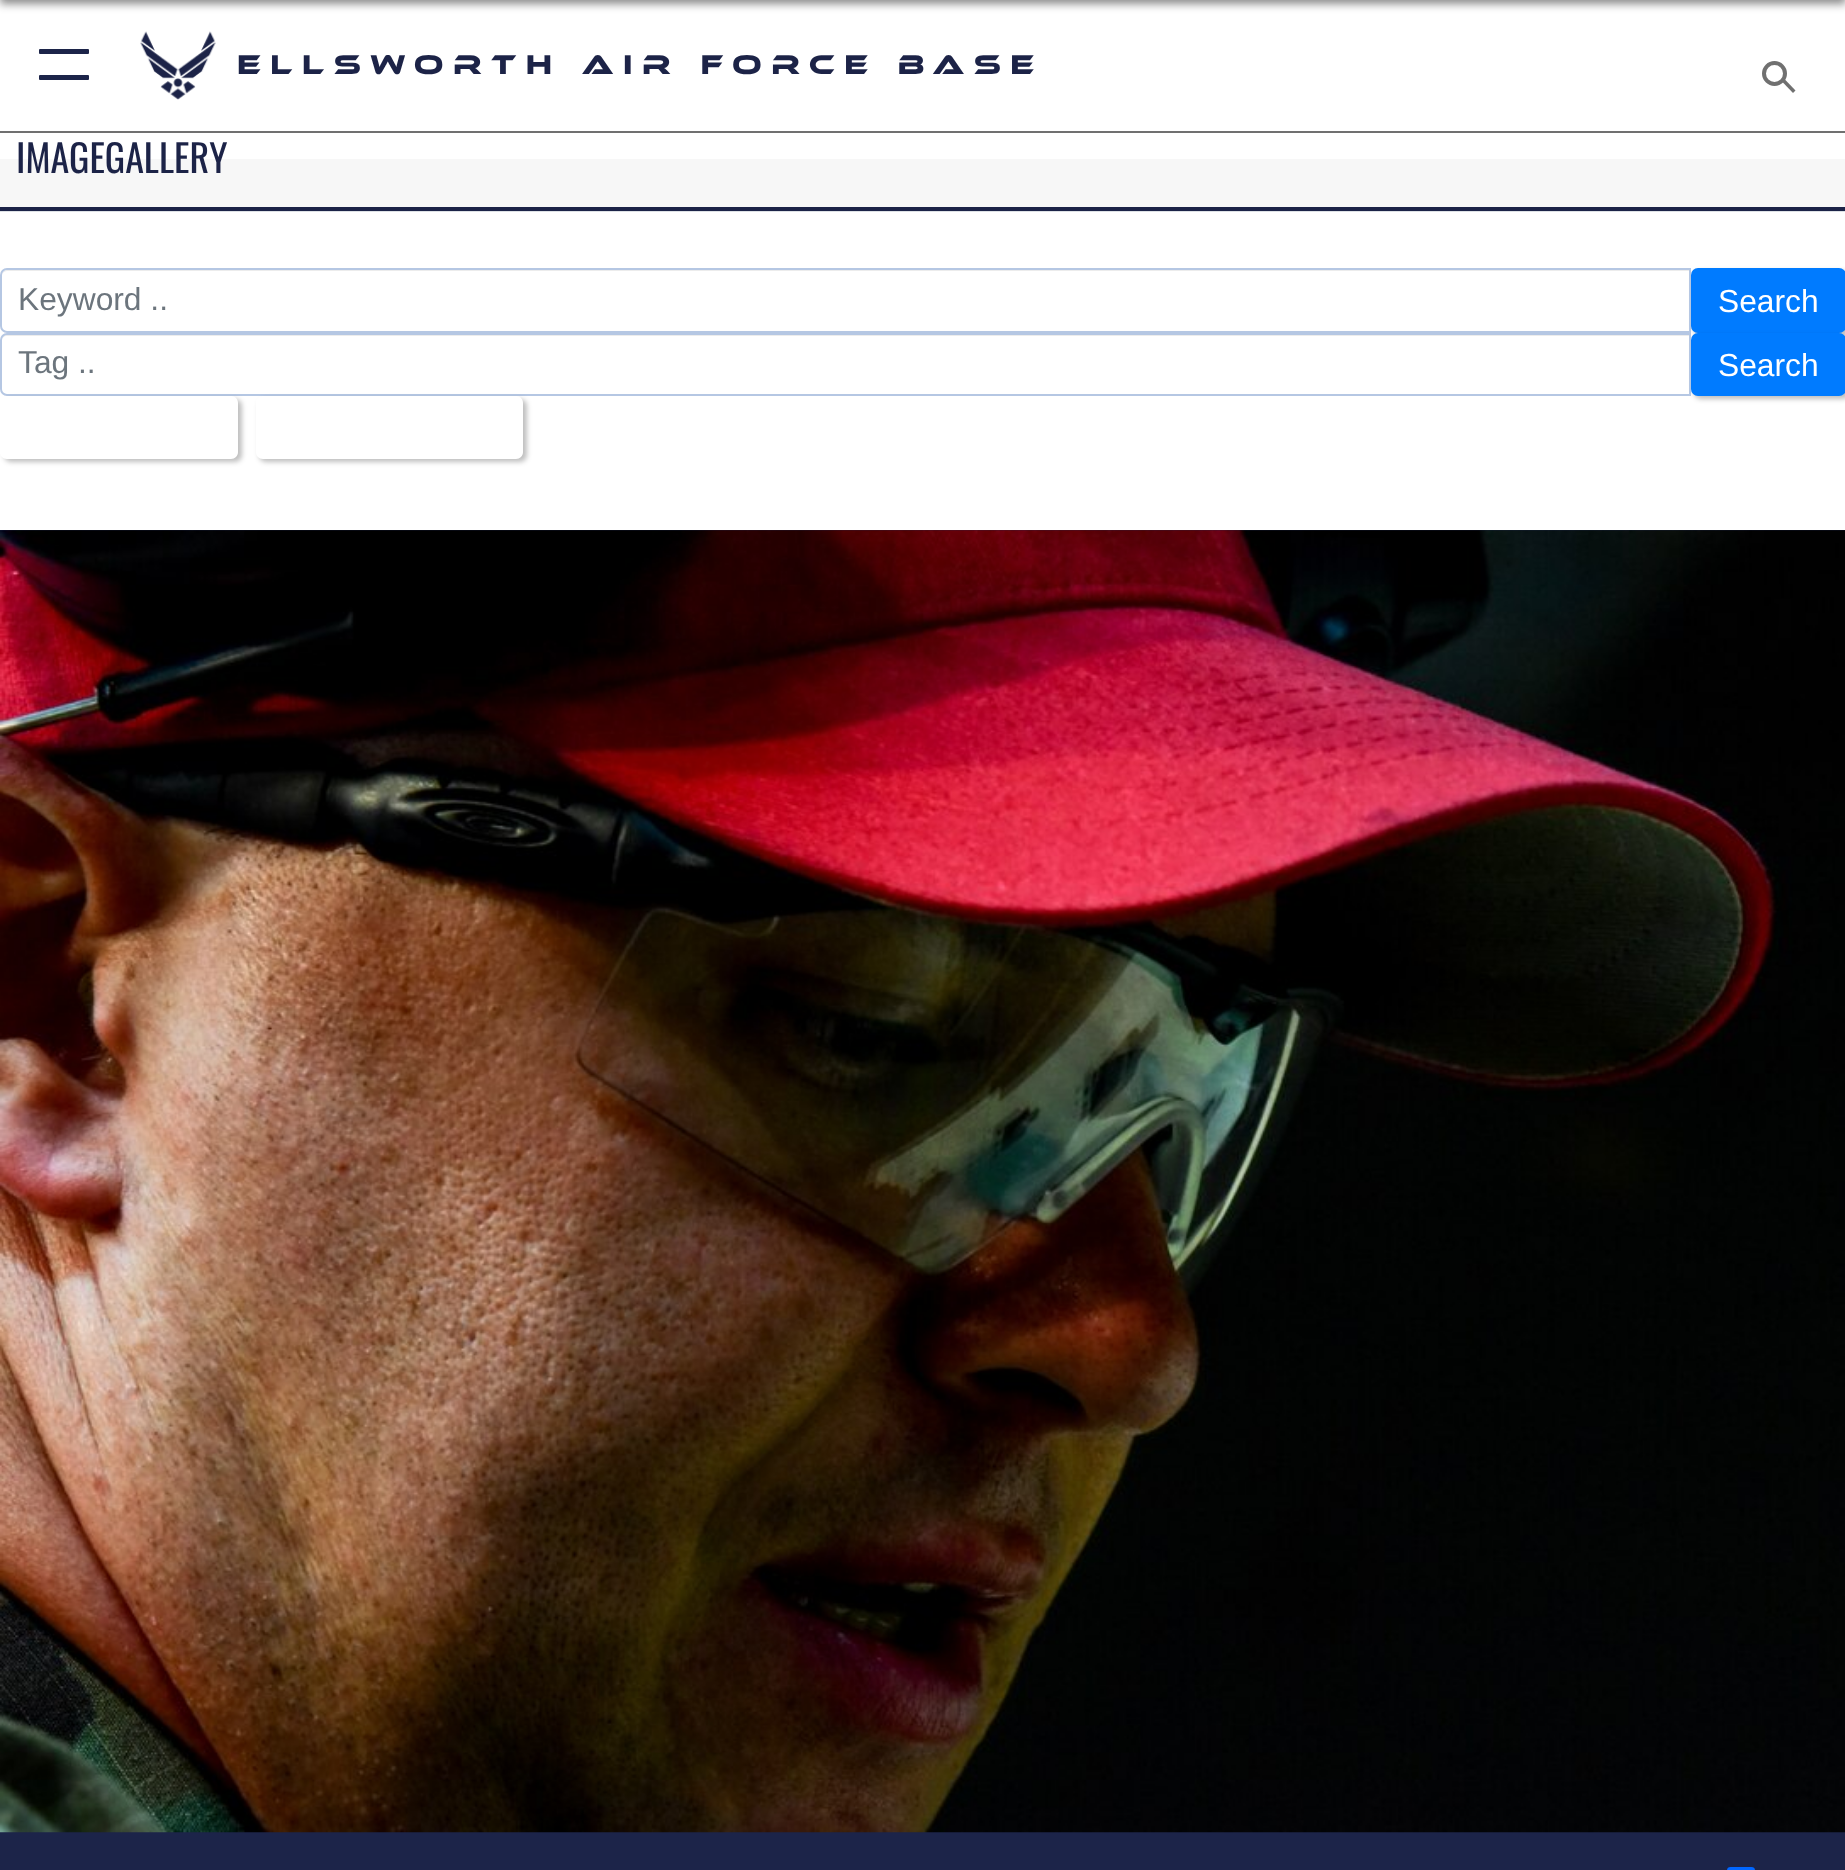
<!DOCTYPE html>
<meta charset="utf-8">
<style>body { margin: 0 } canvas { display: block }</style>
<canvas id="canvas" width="1845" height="1870"></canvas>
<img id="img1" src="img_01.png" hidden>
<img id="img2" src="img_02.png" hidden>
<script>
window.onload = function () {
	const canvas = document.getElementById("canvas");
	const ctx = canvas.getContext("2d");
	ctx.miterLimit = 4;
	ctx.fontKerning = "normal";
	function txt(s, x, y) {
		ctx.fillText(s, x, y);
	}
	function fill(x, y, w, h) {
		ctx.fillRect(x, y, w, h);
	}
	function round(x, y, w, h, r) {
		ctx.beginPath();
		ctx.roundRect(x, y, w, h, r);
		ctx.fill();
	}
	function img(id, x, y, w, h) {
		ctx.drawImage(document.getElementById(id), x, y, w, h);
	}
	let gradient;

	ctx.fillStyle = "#FFFFFF";
	fill(0, 0, 1845, 1870);
	ctx.fillStyle = "rgba(26, 26, 26, 0.5)";
	ctx.filter = "blur(4.5px)";
	ctx.beginPath();
	ctx.rect(0, -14, 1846, 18);
	ctx.fill();
	ctx.filter = "none";
	ctx.fillStyle = "#707070";
	fill(0, 131, 1845, 2);
	ctx.fillStyle = "#1C2449";
	round(39, 49, 50, 5, 1);
	round(39, 75, 50, 5, 1);
	img("img1", 140, 31, 76, 69);
	ctx.beginPath();
	ctx.arc(1774.5, 73.5, 10.5, 0, Math.PI * 2);
	ctx.strokeStyle = "#707070";
	ctx.lineWidth = 4;
	ctx.stroke();
	ctx.fillStyle = "#707070";
	ctx.beginPath();
	ctx.moveTo(1783.5, 78);
	ctx.lineTo(1795.5, 90.5);
	ctx.lineTo(1793, 93);
	ctx.lineTo(1781, 80.5);
	ctx.closePath();
	ctx.fill();
	gradient = ctx.createLinearGradient(923, 133, 923, 210);
	gradient.addColorStop(0, "#FFFFFF");
	gradient.addColorStop(0.34, "#FFFFFF");
	gradient.addColorStop(0.34, "#F7F7F7");
	gradient.addColorStop(1, "#F7F7F7");
	ctx.fillStyle = gradient;
	fill(0, 159, 1845, 48);
	ctx.fillStyle = "#DEE2E6";
	fill(0, 211, 1845, 1);
	ctx.fillStyle = "#1C2347";
	fill(0, 207, 1845, 4);
	ctx.fillStyle = "rgba(0, 0, 0, 0.25)";
	ctx.filter = "blur(2.5px)";
	ctx.beginPath();
	ctx.roundRect(1694, 271, 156, 65, 7);
	ctx.fill();
	ctx.filter = "none";
	ctx.fillStyle = "#ECECEC";
	ctx.beginPath();
	ctx.moveTo(7, 271);
	ctx.lineTo(1689, 271);
	ctx.lineTo(1689, 270);
	ctx.lineTo(7, 270);
	ctx.bezierCurveTo(4, 270, 2, 273, 2, 276);
	ctx.bezierCurveTo(2, 274, 4, 271, 7, 271);
	ctx.closePath();
	ctx.fill();
	ctx.beginPath();
	ctx.roundRect(1, 269, 1689, 63, [6, 0, 0, 6]);
	ctx.strokeStyle = "#B5C7E3";
	ctx.lineWidth = 2;
	ctx.stroke();
	ctx.fillStyle = "#007BFF";
	round(1691, 268, 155, 65, 7);
	ctx.fillStyle = "rgba(0, 0, 0, 0.25)";
	ctx.filter = "blur(2.5px)";
	ctx.beginPath();
	ctx.roundRect(1694, 336, 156, 63, 7);
	ctx.fill();
	ctx.filter = "none";
	ctx.fillStyle = "#ECECEC";
	ctx.beginPath();
	ctx.moveTo(7, 336);
	ctx.lineTo(1689, 336);
	ctx.lineTo(1689, 334);
	ctx.lineTo(7, 334);
	ctx.bezierCurveTo(3, 334, 2, 338, 2, 341);
	ctx.bezierCurveTo(2, 338, 4, 336, 7, 336);
	ctx.closePath();
	ctx.fill();
	ctx.beginPath();
	ctx.roundRect(1, 334, 1689, 61, [6, 0, 0, 6]);
	ctx.stroke();
	ctx.fillStyle = "#007BFF";
	round(1691, 333, 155, 63, 7);
	ctx.save();
	ctx.beginPath();
	ctx.moveTo(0, 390);
	ctx.lineTo(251, 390);
	ctx.lineTo(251, 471);
	ctx.lineTo(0, 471);
	ctx.closePath();
	ctx.moveTo(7, 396);
	ctx.lineTo(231, 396);
	ctx.bezierCurveTo(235, 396, 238, 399, 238, 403);
	ctx.lineTo(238, 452);
	ctx.bezierCurveTo(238, 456, 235, 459, 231, 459);
	ctx.lineTo(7, 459);
	ctx.bezierCurveTo(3, 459, 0, 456, 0, 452);
	ctx.lineTo(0, 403);
	ctx.bezierCurveTo(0, 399, 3, 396, 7, 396);
	ctx.closePath();
	ctx.clip("evenodd");
	ctx.fillStyle = "rgba(0, 0, 0, 0.25)";
	ctx.filter = "blur(2.5px)";
	ctx.beginPath();
	ctx.roundRect(4, 399, 238, 63, 7);
	ctx.fill();
	ctx.filter = "none";
	ctx.restore();
	ctx.save();
	ctx.beginPath();
	ctx.moveTo(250, 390);
	ctx.lineTo(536, 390);
	ctx.lineTo(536, 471);
	ctx.lineTo(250, 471);
	ctx.closePath();
	ctx.moveTo(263, 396);
	ctx.lineTo(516, 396);
	ctx.bezierCurveTo(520, 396, 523, 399, 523, 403);
	ctx.lineTo(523, 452);
	ctx.bezierCurveTo(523, 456, 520, 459, 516, 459);
	ctx.lineTo(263, 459);
	ctx.bezierCurveTo(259, 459, 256, 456, 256, 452);
	ctx.lineTo(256, 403);
	ctx.bezierCurveTo(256, 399, 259, 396, 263, 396);
	ctx.closePath();
	ctx.clip("evenodd");
	ctx.fillStyle = "rgba(0, 0, 0, 0.25)";
	ctx.filter = "blur(2.5px)";
	ctx.beginPath();
	ctx.roundRect(259, 399, 268, 63, 7);
	ctx.fill();
	ctx.filter = "none";
	ctx.restore();
	ctx.fillStyle = "#1C2449";
	fill(0, 530, 1845, 1340);
	img("img2", 0, 530, 1845, 1303);
	ctx.fillStyle = "#0166FF";
	round(1727, 1867, 28, 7, 4);
	ctx.letterSpacing = "9.5px";
	ctx.font = "28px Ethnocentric";
	ctx.fillStyle = "#1C2347";
	txt("Ellsworth Air Force Base", 237, 74);
	ctx.letterSpacing = "0px";
	ctx.font = "38px Oswald";
	txt("IMAGEGALLERY", 16, 173);
	ctx.font = "31.75px Liberation Sans";
	ctx.fillStyle = "#6C757D";
	txt("Keyword ..", 18, 310);
	ctx.fillStyle = "#FFFFFF";
	txt("Search", 1718, 312);
	ctx.fillStyle = "#6C757D";
	txt("Tag ..", 18, 373);
	ctx.fillStyle = "#FFFFFF";
	txt("Search", 1718, 376);
};
</script>
